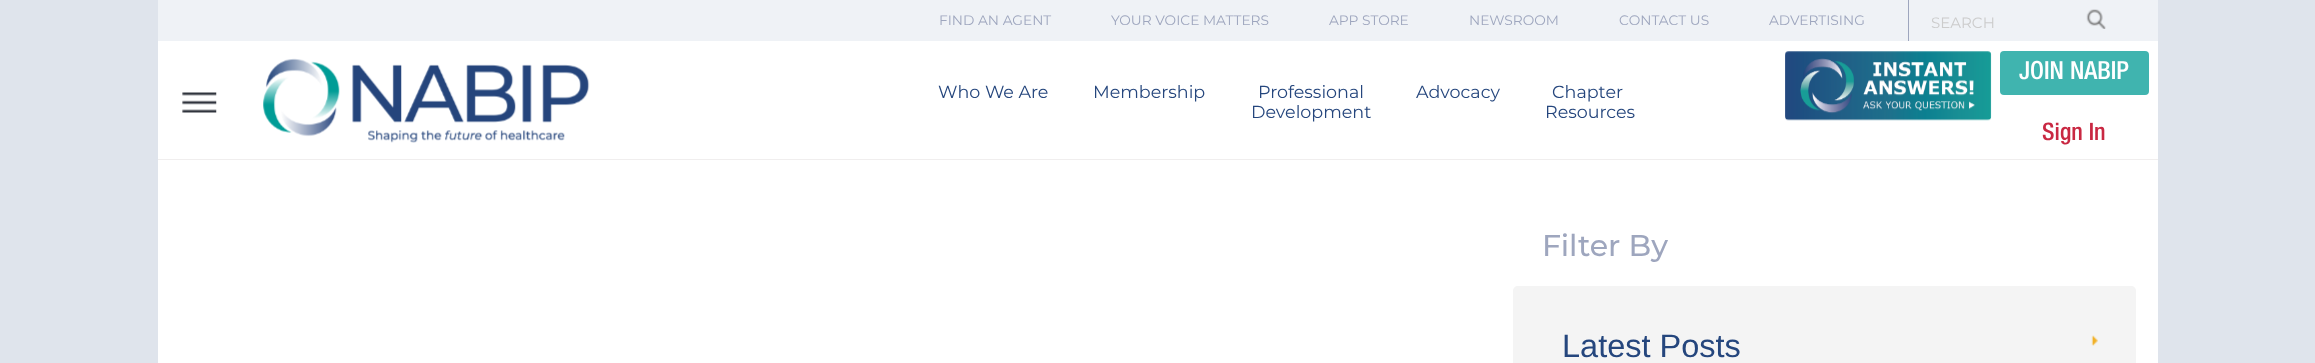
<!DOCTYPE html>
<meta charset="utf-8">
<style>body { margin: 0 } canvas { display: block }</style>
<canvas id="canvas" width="2315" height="363"></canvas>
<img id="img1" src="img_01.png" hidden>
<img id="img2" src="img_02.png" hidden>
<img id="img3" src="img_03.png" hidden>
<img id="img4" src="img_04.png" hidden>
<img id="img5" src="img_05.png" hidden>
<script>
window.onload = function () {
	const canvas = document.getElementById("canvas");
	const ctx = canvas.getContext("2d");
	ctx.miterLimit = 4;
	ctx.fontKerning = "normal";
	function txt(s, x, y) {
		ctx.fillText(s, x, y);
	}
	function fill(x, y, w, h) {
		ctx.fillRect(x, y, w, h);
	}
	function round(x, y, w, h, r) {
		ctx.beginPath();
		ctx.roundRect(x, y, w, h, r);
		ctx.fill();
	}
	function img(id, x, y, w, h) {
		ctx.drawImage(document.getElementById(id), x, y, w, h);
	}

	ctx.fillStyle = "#DFE4EC";
	fill(0, 0, 2315, 363);
	ctx.fillStyle = "#EFF2F6";
	fill(158, 0, 2000, 41);
	ctx.fillStyle = "#9EA6BE";
	fill(1908, 0, 1, 41);
	img("img1", 2086, 9, 20, 20);
	ctx.fillStyle = "#FFFFFF";
	fill(158, 41, 2000, 118);
	ctx.fillStyle = "#F0EEEE";
	fill(158, 159, 2000, 1);
	img("img2", 182, 92, 35, 21);
	img("img3", 263, 58, 327, 85);
	img("img4", 1785, 51, 207, 70);
	ctx.fillStyle = "#40B4AF";
	round(2000, 51, 149, 44, 4);
	ctx.fillStyle = "#FFFFFF";
	fill(158, 160, 2000, 203);
	ctx.fillStyle = "#F4F4F4";
	ctx.beginPath();
	ctx.moveTo(1518, 286);
	ctx.lineTo(2131, 286);
	ctx.bezierCurveTo(2134, 286, 2136, 288, 2136, 291);
	ctx.lineTo(2136, 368);
	ctx.lineTo(1513, 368);
	ctx.lineTo(1513, 291);
	ctx.bezierCurveTo(1513, 288, 1515, 286, 1518, 286);
	ctx.closePath();
	ctx.fill();
	img("img5", 2091, 335, 7, 11);
	ctx.font = "13.75px Montserrat";
	ctx.fillStyle = "#9EA6BE";
	txt("FIND AN AGENT", 939, 25);
	txt("YOUR VOICE MATTERS", 1111, 25);
	txt("APP STORE", 1329, 25);
	txt("NEWSROOM", 1469, 25);
	txt("CONTACT US", 1619, 25);
	txt("ADVERTISING", 1769, 25);
	ctx.font = "15px Montserrat";
	ctx.fillStyle = "#CCCCCC";
	txt("SEARCH", 1931, 28);
	ctx.font = "17.5px Montserrat";
	ctx.fillStyle = "#25467D";
	txt("Who We Are", 938, 98);
	txt("Membership", 1093, 98);
	txt("Professional", 1258, 98);
	txt("Development", 1251, 118);
	txt("Advocacy", 1416, 98);
	txt("Chapter", 1552, 98);
	txt("Resources", 1545, 118);
	ctx.font = "500 25px Helvetica Neue";
	ctx.fillStyle = "#FFFFFF";
	txt("JOIN NABIP", 2019, 79);
	ctx.font = "500 24px Helvetica Neue";
	ctx.fillStyle = "#C92842";
	txt("Sign In", 2042, 140);
	ctx.font = "500 30px Montserrat";
	ctx.fillStyle = "#9EA6BE";
	txt("Filter By", 1542, 256);
	ctx.font = "32.5px Liberation Sans";
	ctx.fillStyle = "#25467D";
	txt("Latest Posts", 1562, 357);
};
</script>
